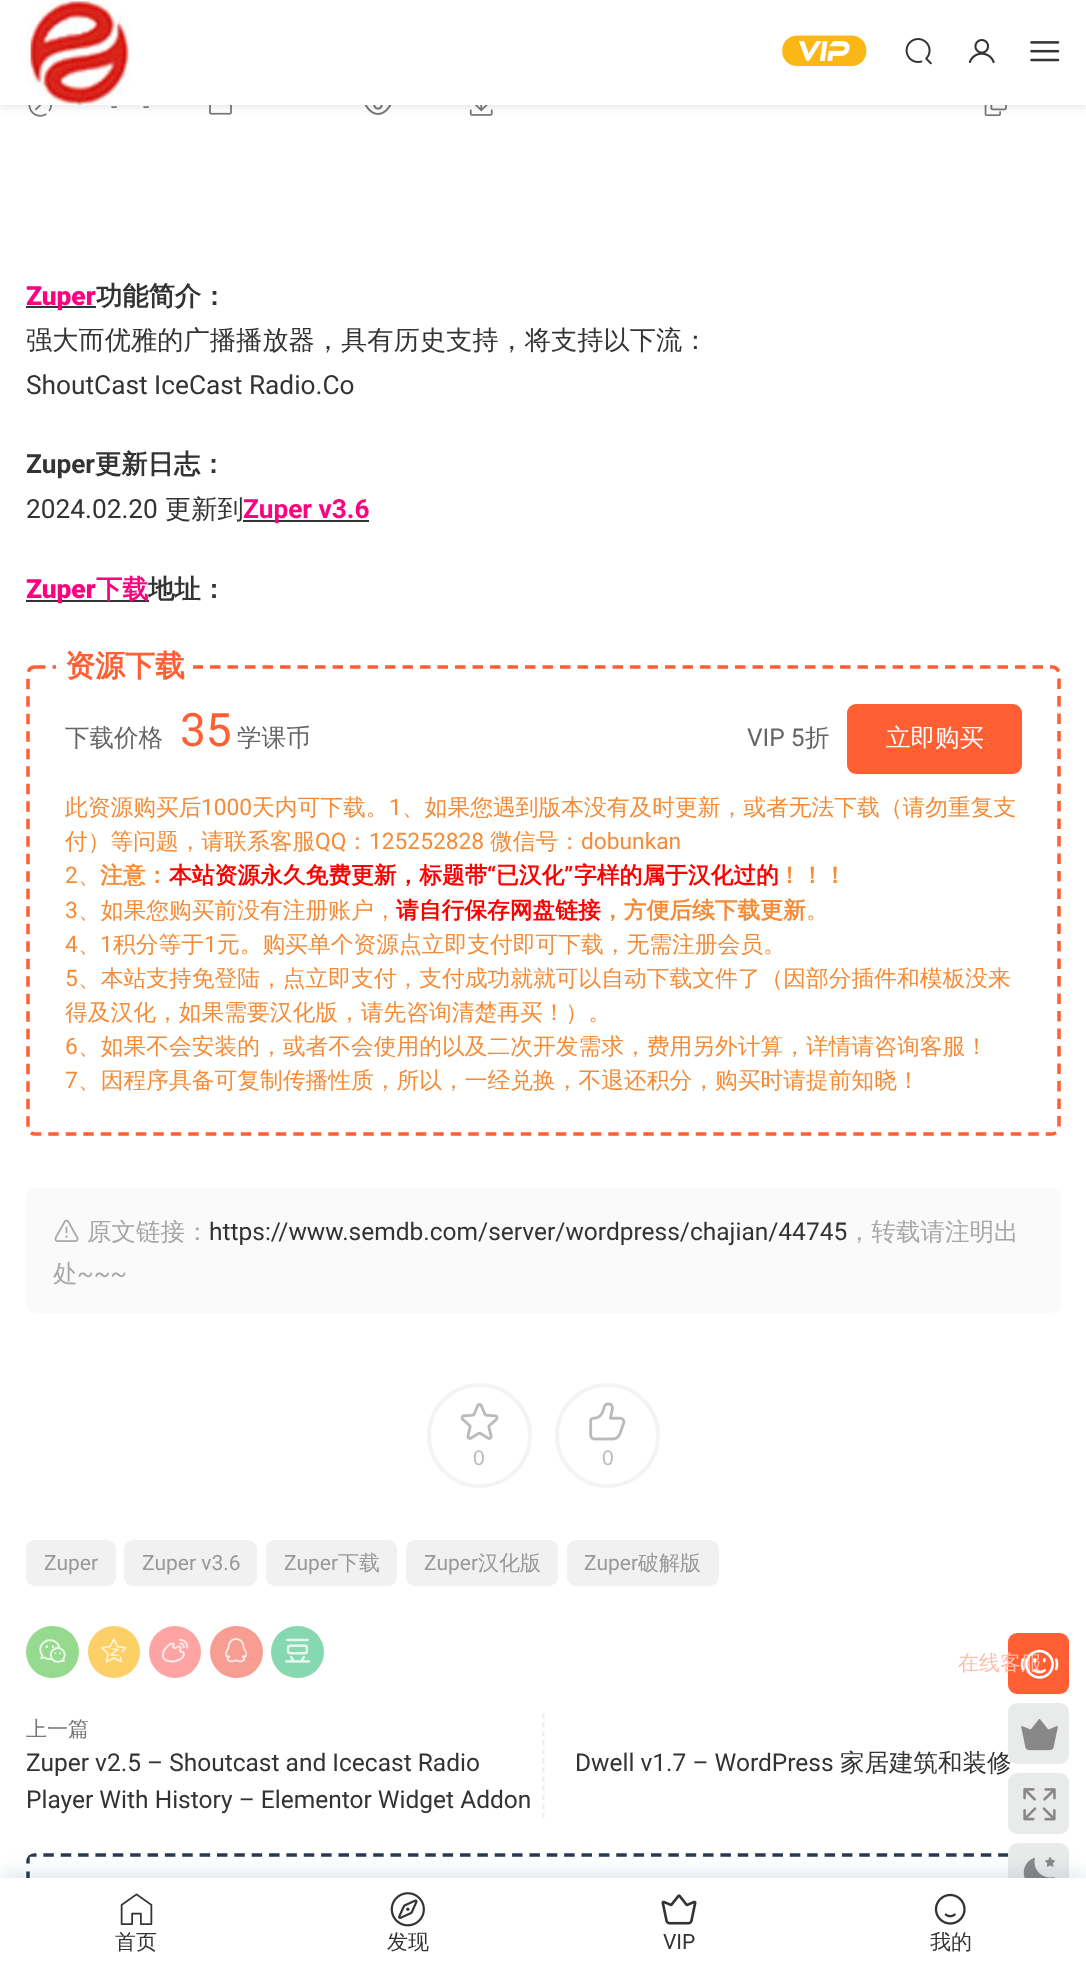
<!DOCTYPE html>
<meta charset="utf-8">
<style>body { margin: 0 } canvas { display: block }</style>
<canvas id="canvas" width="1086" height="1964"></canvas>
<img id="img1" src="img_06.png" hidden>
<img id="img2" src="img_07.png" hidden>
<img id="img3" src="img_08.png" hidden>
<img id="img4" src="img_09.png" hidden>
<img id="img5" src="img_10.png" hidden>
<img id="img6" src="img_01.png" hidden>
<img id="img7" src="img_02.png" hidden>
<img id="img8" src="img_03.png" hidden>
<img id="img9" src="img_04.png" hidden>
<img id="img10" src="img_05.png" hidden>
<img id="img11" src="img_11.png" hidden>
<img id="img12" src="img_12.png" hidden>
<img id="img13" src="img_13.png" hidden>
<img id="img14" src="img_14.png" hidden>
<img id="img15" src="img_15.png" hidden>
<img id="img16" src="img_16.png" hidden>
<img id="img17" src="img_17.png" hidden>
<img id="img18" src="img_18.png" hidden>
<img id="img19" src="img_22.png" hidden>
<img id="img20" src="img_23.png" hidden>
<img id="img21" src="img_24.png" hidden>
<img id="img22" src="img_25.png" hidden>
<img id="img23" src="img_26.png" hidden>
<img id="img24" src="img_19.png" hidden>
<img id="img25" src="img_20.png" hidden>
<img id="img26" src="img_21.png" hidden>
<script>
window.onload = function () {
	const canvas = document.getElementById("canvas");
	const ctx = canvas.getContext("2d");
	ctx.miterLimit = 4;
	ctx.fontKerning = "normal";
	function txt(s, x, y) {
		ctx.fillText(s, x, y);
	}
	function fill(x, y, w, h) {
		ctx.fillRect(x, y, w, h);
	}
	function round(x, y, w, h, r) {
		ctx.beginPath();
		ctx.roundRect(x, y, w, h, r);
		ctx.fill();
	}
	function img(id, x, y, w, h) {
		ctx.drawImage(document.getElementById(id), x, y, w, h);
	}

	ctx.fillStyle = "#FFFFFF";
	fill(0, 0, 1086, 1964);
	img("img1", 28, 105, 24, 12);
	img("img2", 209, 105, 23, 10);
	img("img3", 364, 105, 28, 10);
	img("img4", 469, 105, 24, 11);
	img("img5", 984, 105, 23, 12);
	ctx.fillStyle = "rgba(0, 0, 0, 0.1)";
	ctx.filter = "blur(4.5px)";
	ctx.beginPath();
	ctx.rect(0, 2, 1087, 105);
	ctx.fill();
	ctx.filter = "none";
	ctx.fillStyle = "#FFFFFF";
	fill(0, 0, 1086, 105);
	img("img6", 26, 0, 105, 105);
	img("img7", 782, 35, 85, 32);
	img("img8", 905, 38, 27, 27);
	img("img9", 968, 39, 27, 25);
	img("img10", 1030, 41, 30, 21);
	ctx.fillStyle = "#333333";
	fill(26, 306, 70, 2);
	fill(243, 520, 126, 2);
	fill(26, 600, 123, 2);
	ctx.beginPath();
	ctx.moveTo(35, 667);
	ctx.lineTo(1052, 667);
	ctx.bezierCurveTo(1055.5, 667, 1059, 670, 1059, 674);
	ctx.lineTo(1059, 1127);
	ctx.bezierCurveTo(1059, 1131, 1055.5, 1134, 1052, 1134);
	ctx.lineTo(35, 1134);
	ctx.bezierCurveTo(31, 1134, 28, 1131, 28, 1127);
	ctx.lineTo(28, 674);
	ctx.bezierCurveTo(28, 670, 31, 667, 35, 667);
	ctx.closePath();
	ctx.strokeStyle = "#FF5F33";
	ctx.lineWidth = 3.5;
	ctx.setLineDash([10.5, 7]);
	ctx.stroke();
	ctx.fillStyle = "#FFFFFF";
	fill(56, 665, 137, 4);
	ctx.fillStyle = "#FF5F33";
	round(847, 704, 175, 70, 9);
	ctx.fillStyle = "#FAFAFA";
	round(26, 1188, 1035, 125, 9);
	img("img11", 54, 1219, 25, 23);
	ctx.beginPath();
	ctx.arc(479.5, 1435.5, 50.5, 0, Math.PI * 2);
	ctx.strokeStyle = "#F3F4F5";
	ctx.lineWidth = 4;
	ctx.setLineDash([]);
	ctx.stroke();
	img("img12", 460, 1403, 39, 37);
	ctx.beginPath();
	ctx.arc(607.5, 1435.5, 50.5, 0, Math.PI * 2);
	ctx.stroke();
	img("img13", 589, 1402, 37, 39);
	ctx.fillStyle = "#F1F1F1";
	round(26, 1540, 90, 46, 9);
	round(124, 1540, 133, 46, 9);
	round(266, 1540, 131, 46, 9);
	round(406, 1540, 152, 46, 9);
	round(567, 1540, 152, 46, 9);
	ctx.fillStyle = "#95DA8E";
	round(26, 1626, 53, 52, 26);
	img("img14", 39, 1639, 27, 24);
	ctx.fillStyle = "#FCD066";
	ctx.beginPath();
	ctx.arc(114, 1652, 26, 0, Math.PI * 2);
	ctx.fill();
	img("img15", 101, 1638, 26, 25);
	ctx.fillStyle = "#FFA4A4";
	ctx.beginPath();
	ctx.arc(175, 1652, 26, 0, Math.PI * 2);
	ctx.fill();
	img("img16", 161, 1638, 28, 25);
	ctx.fillStyle = "#F89D91";
	round(210, 1626, 53, 52, 26);
	img("img17", 225, 1638, 22, 25);
	ctx.fillStyle = "#85D8AF";
	round(271, 1626, 53, 52, 26);
	img("img18", 285, 1638, 25, 25);
	ctx.beginPath();
	ctx.moveTo(543.5, 1713);
	ctx.lineTo(543.5, 1818);
	ctx.strokeStyle = "#EAEAEA";
	ctx.lineWidth = 1.8;
	ctx.setLineDash([5.25, 3.82]);
	ctx.stroke();
	ctx.save();
	ctx.beginPath();
	ctx.roundRect(26, 1853, 1035, 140, 9);
	ctx.clip();
	ctx.beginPath();
	ctx.moveTo(26, 1855);
	ctx.lineTo(1060.5, 1855);
	ctx.strokeStyle = "#2D3757";
	ctx.lineWidth = 3.5;
	ctx.setLineDash([10.5, 6.86]);
	ctx.stroke();
	ctx.beginPath();
	ctx.moveTo(28, 1853);
	ctx.lineTo(28, 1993);
	ctx.setLineDash([10.5, 8]);
	ctx.stroke();
	ctx.restore();
	ctx.fillStyle = "#FF5F33";
	round(1008, 1633, 61, 61, 9);
	ctx.fillStyle = "#E9EAEA";
	round(1008, 1843, 61, 61, 9);
	img("img19", 1023, 1857, 32, 21);
	ctx.fillStyle = "rgba(17, 58, 93, 0.1)";
	ctx.filter = "blur(9px)";
	ctx.beginPath();
	ctx.rect(0, 1871, 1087, 87);
	ctx.fill();
	ctx.filter = "none";
	ctx.fillStyle = "#FFFFFF";
	fill(0, 1878, 1086, 86);
	img("img20", 120, 1893, 33, 32);
	img("img21", 390, 1892, 35, 35);
	img("img22", 661, 1894, 36, 31);
	img("img23", 934, 1893, 32, 32);
	ctx.font = "22.75px Roboto";
	ctx.fillStyle = "#777777";
	txt("-", 111, 114);
	txt("-", 143, 114);
	ctx.font = "900 26.25px Roboto";
	ctx.fillStyle = "#FF0080";
	txt("Zuper", 26, 305);
	ctx.font = "bold 26.25px WenQuanYi Zen Hei";
	ctx.fillStyle = "#333333";
	txt("功能简介：", 96, 305);
	ctx.font = "500 26.25px WenQuanYi Zen Hei";
	txt("强大而优雅的广播播放器，具有历史支持，将支持以下流：", 26, 349);
	ctx.font = "26.25px Roboto";
	txt("ShoutCast IceCast Radio.Co", 26, 394);
	ctx.font = "bold 26.25px Roboto";
	txt("Zuper", 26, 473);
	ctx.font = "bold 26.25px WenQuanYi Zen Hei";
	txt("更新日志：", 95, 473);
	ctx.font = "26.25px Roboto";
	txt("2024.02.20", 26, 518);
	ctx.font = "500 26.25px WenQuanYi Zen Hei";
	txt("更新到", 165, 518);
	ctx.font = "bold 26.25px Roboto";
	ctx.fillStyle = "#FF0080";
	txt("Zuper v3.6", 243, 518);
	ctx.font = "900 26.25px Roboto";
	txt("Zuper", 26, 598);
	ctx.font = "bold 26.25px WenQuanYi Zen Hei";
	txt("下载", 96, 598);
	ctx.fillStyle = "#333333";
	txt("地址：", 148, 598);
	ctx.font = "bold 30px WenQuanYi Zen Hei";
	ctx.fillStyle = "#FF5F33";
	txt("资源下载", 65, 676);
	ctx.font = "500 24.5px WenQuanYi Zen Hei";
	ctx.fillStyle = "#666666";
	txt("下载价格", 65, 746);
	ctx.font = "46px Roboto";
	ctx.fillStyle = "#FF5F33";
	txt("35", 180, 746);
	ctx.font = "500 24.5px WenQuanYi Zen Hei";
	ctx.fillStyle = "#666666";
	txt("学课币", 237, 746);
	ctx.font = "24.5px Roboto";
	txt("VIP 5", 747, 746);
	ctx.font = "500 24.5px WenQuanYi Zen Hei";
	txt("折", 805, 746);
	ctx.fillStyle = "#FFFFFF";
	txt("立即购买", 886, 746);
	ctx.font = "500 22.75px WenQuanYi Zen Hei";
	ctx.fillStyle = "#F58B36";
	txt("此资源购买后", 65, 815);
	ctx.font = "22.75px Roboto";
	txt("1000", 201, 815);
	ctx.font = "500 22.75px WenQuanYi Zen Hei";
	txt("天内可下载。", 252, 815);
	ctx.font = "22.75px Roboto";
	txt("1", 389, 815);
	ctx.font = "500 22.75px WenQuanYi Zen Hei";
	txt("、如果您遇到版本没有及时更新，或者无法下载（请勿重复支", 402, 815);
	txt("付）等问题，请联系客服", 65, 849);
	ctx.font = "22.75px Roboto";
	txt("QQ", 315, 849);
	ctx.font = "500 22.75px WenQuanYi Zen Hei";
	txt("：", 346, 849);
	ctx.font = "22.75px Roboto";
	txt("125252828", 369, 849);
	ctx.font = "500 22.75px WenQuanYi Zen Hei";
	txt("微信号：", 490, 849);
	ctx.font = "22.75px Roboto";
	txt("dobunkan", 581, 849);
	txt("2", 65, 883);
	ctx.font = "bold 22.75px WenQuanYi Zen Hei";
	txt("注意：", 100, 883);
	ctx.fillStyle = "#FF0000";
	txt("本站资源永久免费更新，标题带", 169, 883);
	ctx.font = "bold 22.75px Roboto";
	txt("“", 487, 883);
	ctx.font = "bold 22.75px WenQuanYi Zen Hei";
	txt("已汉化", 496, 883);
	ctx.font = "bold 22.75px Roboto";
	txt("”", 564, 883);
	ctx.font = "bold 22.75px WenQuanYi Zen Hei";
	txt("字样的属于汉化过的", 574, 883);
	ctx.fillStyle = "#F58B36";
	txt("！！！", 778, 883);
	ctx.font = "500 22.75px WenQuanYi Zen Hei";
	txt("、", 78, 883);
	ctx.font = "22.75px Roboto";
	txt("3", 65, 918);
	ctx.font = "500 22.75px WenQuanYi Zen Hei";
	txt("、如果您购买前没有注册账户，", 78, 918);
	ctx.font = "bold 22.75px WenQuanYi Zen Hei";
	ctx.fillStyle = "#FF0000";
	txt("请自行保存网盘链接", 396, 918);
	ctx.fillStyle = "#F58B36";
	txt("，方便后续下载更新", 601, 918);
	ctx.font = "500 22.75px WenQuanYi Zen Hei";
	txt("。", 806, 918);
	ctx.font = "22.75px Roboto";
	txt("4", 65, 952);
	txt("1", 100, 952);
	ctx.font = "500 22.75px WenQuanYi Zen Hei";
	txt("积分等于", 113, 952);
	ctx.font = "22.75px Roboto";
	txt("1", 204, 952);
	ctx.font = "500 22.75px WenQuanYi Zen Hei";
	txt("元。购买单个资源点立即支付即可下载，无需注册会员。", 217, 952);
	txt("、", 78, 952);
	ctx.font = "22.75px Roboto";
	txt("5", 65, 986);
	ctx.font = "500 22.75px WenQuanYi Zen Hei";
	txt("、本站支持免登陆，点立即支付，支付成功就就可以自动下载文件了（因部分插件和模板没来", 78, 986);
	txt("得及汉化，如果需要汉化版，请先咨询清楚再买！）。", 65, 1020);
	ctx.font = "22.75px Roboto";
	txt("6", 65, 1054);
	ctx.font = "500 22.75px WenQuanYi Zen Hei";
	txt("、如果不会安装的，或者不会使用的以及二次开发需求，费用另外计算，详情请咨询客服！", 78, 1054);
	ctx.font = "22.75px Roboto";
	txt("7", 65, 1088);
	ctx.font = "500 22.75px WenQuanYi Zen Hei";
	txt("、因程序具备可复制传播性质，所以，一经兑换，不退还积分，购买时请提前知晓！", 78, 1088);
	ctx.font = "500 24.5px WenQuanYi Zen Hei";
	ctx.fillStyle = "#A7A7A7";
	txt("原文链接：", 87, 1240);
	ctx.font = "24.5px Roboto";
	ctx.fillStyle = "#333333";
	txt("https://www.semdb.com/server/wordpress/chajian/44745", 209, 1240);
	ctx.font = "500 24.5px WenQuanYi Zen Hei";
	ctx.fillStyle = "#A7A7A7";
	txt("，转载请注明出", 847, 1240);
	txt("处", 53, 1282);
	ctx.font = "24.5px Roboto";
	txt("~~~", 77, 1282);
	ctx.font = "21px Liberation Sans";
	ctx.fillStyle = "#BBBBBB";
	txt("0", 473, 1465);
	txt("0", 602, 1465);
	ctx.font = "21px Roboto";
	ctx.fillStyle = "#999999";
	txt("Zuper", 44, 1570);
	txt("Zuper v3.6", 142, 1570);
	txt("Zuper", 284, 1570);
	ctx.font = "500 21px WenQuanYi Zen Hei";
	txt("下载", 338, 1570);
	ctx.font = "21px Roboto";
	txt("Zuper", 424, 1570);
	ctx.font = "500 21px WenQuanYi Zen Hei";
	txt("汉化版", 478, 1570);
	ctx.font = "21px Roboto";
	txt("Zuper", 584, 1570);
	ctx.font = "500 21px WenQuanYi Zen Hei";
	txt("破解版", 638, 1570);
	ctx.fillStyle = "#777777";
	txt("上一篇", 26, 1736);
	ctx.font = "24.5px Roboto";
	ctx.fillStyle = "#333333";
	txt("Zuper v2.5 – Shoutcast and Icecast Radio", 26, 1771);
	txt("Player With History – Elementor Widget Addon", 26, 1808);
	txt("Dwell v1.7 – WordPress", 575, 1771);
	ctx.font = "500 24.5px WenQuanYi Zen Hei";
	txt("家居建筑和装修", 840, 1771);
	ctx.font = "500 21px WenQuanYi Zen Hei";
	ctx.fillStyle = "#FFBDAB";
	txt("在线客服", 958, 1670);
	img("img24", 1020, 1649, 39, 30);
	ctx.fillStyle = "#E9EAEA";
	round(1008, 1703, 61, 61, 9);
	img("img25", 1021, 1719, 37, 32);
	round(1008, 1773, 61, 61, 9);
	img("img26", 1023, 1788, 33, 33);
	ctx.fillStyle = "#333333";
	txt("首页", 115, 1949);
	txt("发现", 387, 1949);
	ctx.font = "21px Roboto";
	txt("VIP", 663, 1949);
	ctx.font = "500 21px WenQuanYi Zen Hei";
	txt("我的", 930, 1949);
};
</script>
